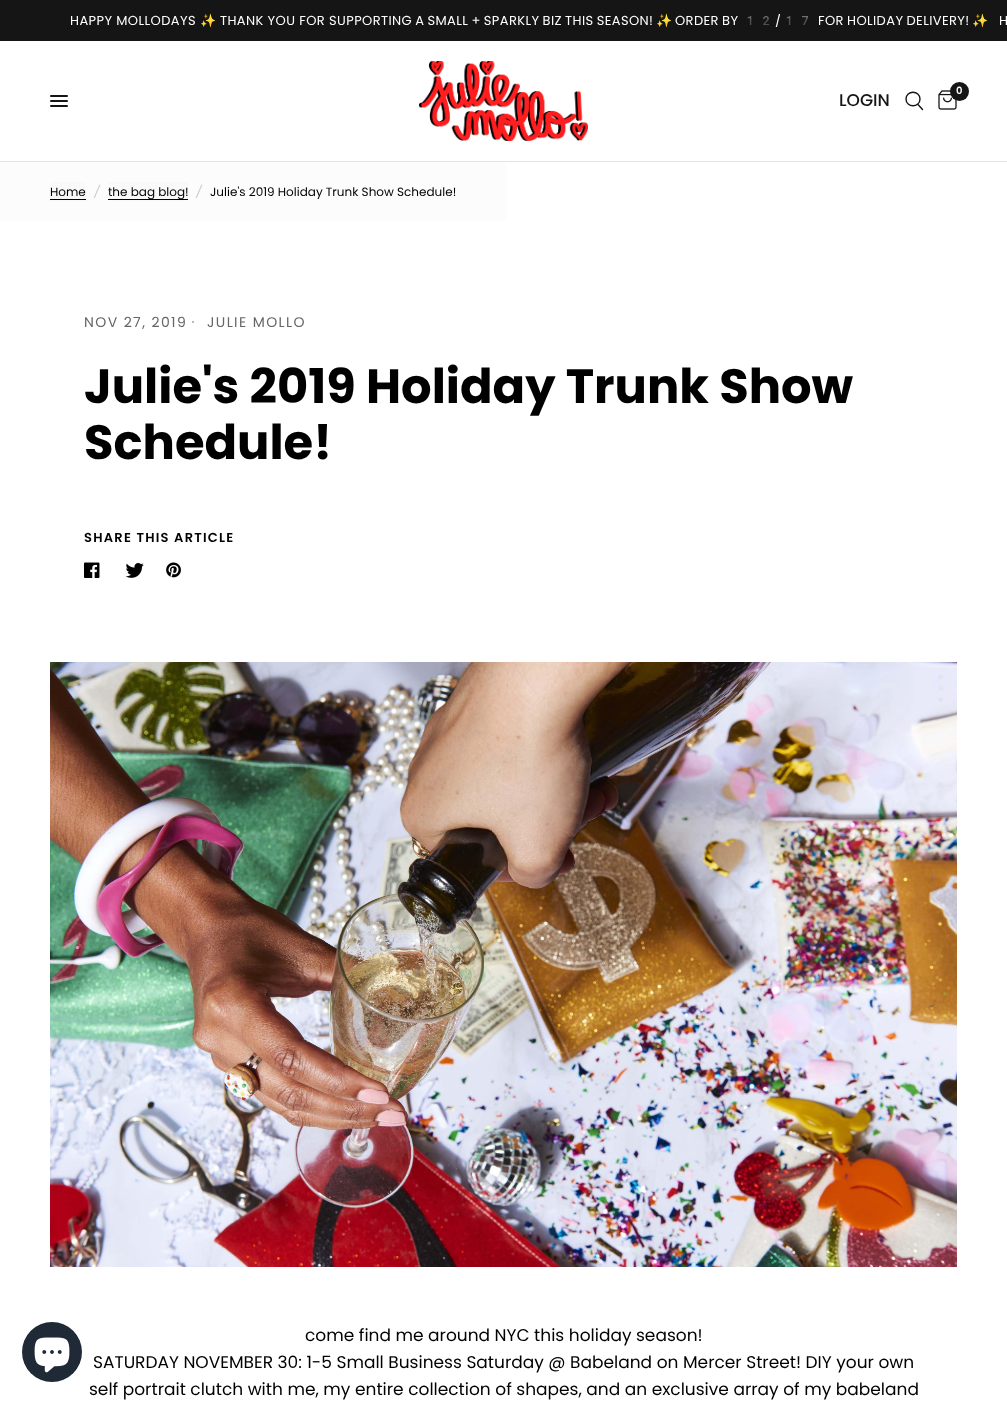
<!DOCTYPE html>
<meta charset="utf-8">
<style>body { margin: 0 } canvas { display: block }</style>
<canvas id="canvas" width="1007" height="1403"></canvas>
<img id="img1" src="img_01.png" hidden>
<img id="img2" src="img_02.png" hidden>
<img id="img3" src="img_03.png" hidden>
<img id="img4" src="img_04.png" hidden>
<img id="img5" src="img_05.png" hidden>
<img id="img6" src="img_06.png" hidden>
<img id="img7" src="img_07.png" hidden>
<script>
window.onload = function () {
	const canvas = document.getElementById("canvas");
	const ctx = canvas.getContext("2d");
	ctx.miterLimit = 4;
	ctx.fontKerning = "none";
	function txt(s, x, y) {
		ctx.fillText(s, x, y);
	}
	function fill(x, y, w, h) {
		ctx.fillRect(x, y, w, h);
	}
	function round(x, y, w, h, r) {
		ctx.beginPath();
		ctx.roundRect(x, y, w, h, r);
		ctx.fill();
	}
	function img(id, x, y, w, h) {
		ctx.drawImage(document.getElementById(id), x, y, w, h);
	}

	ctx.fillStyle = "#FFFFFF";
	fill(0, 0, 1007, 1403);
	ctx.fillStyle = "#151515";
	fill(0, 0, 1007, 41);
	ctx.fillStyle = "#E2E2E2";
	fill(0, 161, 1007, 1);
	ctx.fillStyle = "#151515";
	round(50, 95, 18, 2, 1);
	round(50, 100, 18, 2, 1);
	round(50, 105, 18, 2, 1);
	img("img1", 419, 61, 169, 80);
	img("img2", 938, 90, 19, 20);
	ctx.beginPath();
	ctx.arc(959.5, 91.5, 9.5, 0, Math.PI * 2);
	ctx.fill();
	ctx.beginPath();
	ctx.moveTo(918, 104.5);
	ctx.lineTo(922.5, 109.5);
	ctx.moveTo(920, 99);
	ctx.bezierCurveTo(920, 108, 906, 108, 906, 99);
	ctx.bezierCurveTo(906, 90, 920, 90, 920, 99);
	ctx.closePath();
	ctx.strokeStyle = "#151515";
	ctx.lineWidth = 1.4;
	ctx.lineCap = "round";
	ctx.lineJoin = "round";
	ctx.stroke();
	ctx.fillStyle = "#FCFCFC";
	fill(0, 162, 506, 59);
	ctx.fillStyle = "#F9F9F9";
	fill(50, 182, 36, 19);
	ctx.fillStyle = "#000000";
	fill(50, 199, 36, 1);
	ctx.fillStyle = "#F9F9F9";
	fill(108, 182, 80, 19);
	ctx.fillStyle = "#000000";
	fill(108, 199, 80, 1);
	ctx.fillStyle = "#A3A3A3";
	ctx.beginPath();
	ctx.arc(193, 322, 1, 0, Math.PI * 2);
	ctx.fill();
	img("img3", 84, 562, 16, 16);
	img("img4", 125, 563, 19, 15);
	img("img5", 166, 562, 15, 16);
	img("img6", 50, 662, 907, 605);
	ctx.fillStyle = "#202A36";
	ctx.beginPath();
	ctx.arc(52, 1352, 30, 0, Math.PI * 2);
	ctx.fill();
	img("img7", 34, 1337, 36, 36);
	ctx.letterSpacing = "0.4px";
	ctx.font = "13px Poppins";
	ctx.fillStyle = "#FFFFFF";
	txt("HAPPY MOLLODAYS", 70, 25);
	ctx.save();
	ctx.beginPath();
	ctx.rect(0, 14, 1007, 13);
	ctx.clip();
	ctx.font = "13px Noto Color Emoji";
	txt("✨", 200, 25);
	ctx.restore();
	txt("THANK YOU FOR", 220, 25);
	ctx.wordSpacing = "-0.75px";
	txt("SUPPORTING A SMALL + SPARKLY BIZ THIS SEASON!", 329, 25);
	ctx.save();
	ctx.beginPath();
	ctx.rect(0, 14, 1007, 13);
	ctx.clip();
	ctx.wordSpacing = "0px";
	ctx.font = "13px Noto Color Emoji";
	txt("✨", 656, 25);
	ctx.restore();
	txt("ORDER BY", 675, 25);
	ctx.save();
	ctx.beginPath();
	ctx.rect(0, 14, 1007, 13);
	ctx.clip();
	ctx.wordSpacing = "0px";
	ctx.font = "13px Noto Color Emoji";
	txt("12", 742, 25);
	ctx.font = "13px Poppins";
	txt("/", 775, 25);
	ctx.font = "13px Noto Color Emoji";
	txt("17", 781, 25);
	ctx.restore();
	txt("FOR HOLIDAY DELIVERY!", 818, 25);
	ctx.save();
	ctx.beginPath();
	ctx.rect(0, 14, 1007, 13);
	ctx.clip();
	ctx.wordSpacing = "0px";
	ctx.font = "13px Noto Color Emoji";
	txt("✨", 972, 25);
	ctx.restore();
	ctx.wordSpacing = "0px";
	txt("H", 999, 25);
	ctx.letterSpacing = "0px";
	ctx.font = "600 10px Poppins";
	txt("0", 956, 94);
	ctx.font = "500 17px Poppins";
	ctx.fillStyle = "#151515";
	txt("LOGIN", 839, 106);
	ctx.font = "12px Poppins";
	ctx.fillStyle = "#000000";
	txt("Home", 50, 196);
	ctx.font = "italic 12px Poppins";
	ctx.fillStyle = "#CACACA";
	txt("/", 94, 196);
	ctx.font = "12px Poppins";
	ctx.fillStyle = "#000000";
	txt("the bag blog!", 108, 196);
	ctx.font = "italic 12px Poppins";
	ctx.fillStyle = "#CACACA";
	txt("/", 196, 196);
	ctx.font = "12px Poppins";
	ctx.fillStyle = "#000000";
	txt("Julie's 2019 Holiday Trunk Show Schedule!", 210, 196);
	ctx.letterSpacing = "1.4px";
	ctx.font = "14px Poppins";
	ctx.fillStyle = "#666666";
	txt("NOV 27, 2019", 84, 327);
	txt("JULIE MOLLO", 207, 327);
	ctx.letterSpacing = "0px";
	ctx.font = "bold 48px Poppins";
	ctx.fillStyle = "#000000";
	txt("Julie's 2019 Holiday Trunk Show", 84, 403);
	txt("Schedule!", 84, 459);
	ctx.letterSpacing = "1.25px";
	ctx.font = "600 13px Poppins";
	txt("SHARE THIS ARTICLE", 84, 542);
	ctx.letterSpacing = "0px";
	ctx.font = "17px Poppins";
	txt("come find me around NYC this holiday season!", 305, 1341);
	txt("SATURDAY NOVEMBER 30: 1-5 Small Business Saturday @ Babeland on Mercer Street! DIY your own", 93, 1368);
	txt("self portrait clutch with me, my entire collection of shapes, and an exclusive array of my babeland", 89, 1395);
};
</script>
